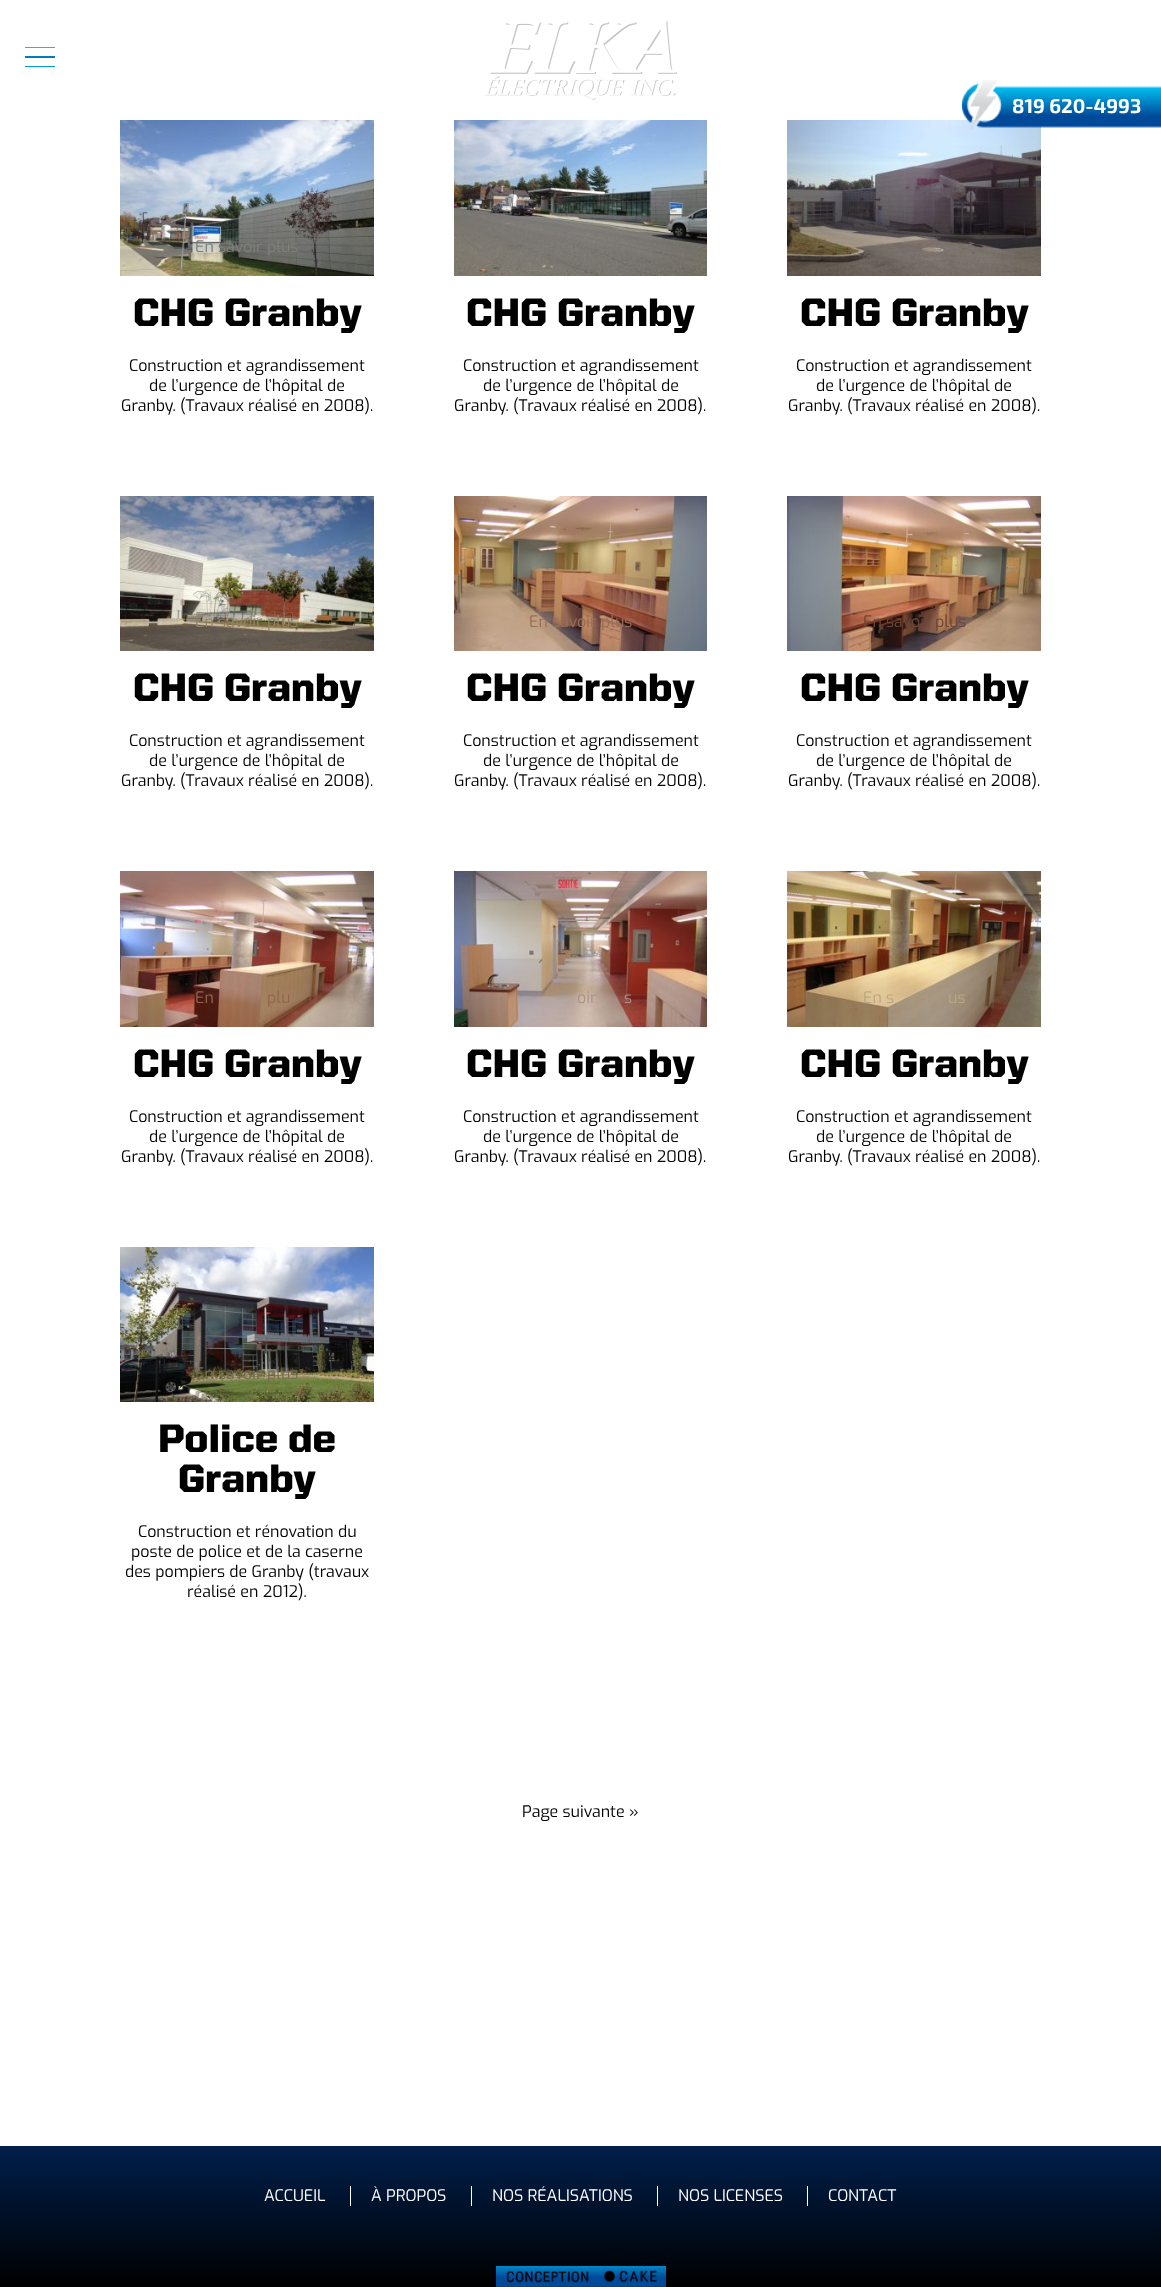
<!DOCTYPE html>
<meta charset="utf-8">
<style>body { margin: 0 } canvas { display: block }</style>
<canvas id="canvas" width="1161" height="2287"></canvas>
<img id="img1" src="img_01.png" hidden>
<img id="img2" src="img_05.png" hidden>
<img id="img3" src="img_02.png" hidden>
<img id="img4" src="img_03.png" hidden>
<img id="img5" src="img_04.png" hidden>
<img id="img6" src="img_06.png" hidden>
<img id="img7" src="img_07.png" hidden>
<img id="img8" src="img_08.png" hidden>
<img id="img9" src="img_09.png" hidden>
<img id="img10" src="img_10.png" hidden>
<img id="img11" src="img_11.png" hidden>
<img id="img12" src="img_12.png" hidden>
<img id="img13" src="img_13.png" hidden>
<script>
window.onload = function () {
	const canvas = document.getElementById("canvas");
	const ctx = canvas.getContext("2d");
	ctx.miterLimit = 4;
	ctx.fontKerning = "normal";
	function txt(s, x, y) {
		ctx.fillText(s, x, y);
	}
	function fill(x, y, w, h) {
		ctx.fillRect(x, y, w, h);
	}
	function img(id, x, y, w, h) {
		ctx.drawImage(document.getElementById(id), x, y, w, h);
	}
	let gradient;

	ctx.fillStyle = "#FFFFFF";
	fill(0, 0, 1161, 2287);
	ctx.fillStyle = "#00C1F3";
	fill(25, 47, 30, 1);
	ctx.fillStyle = "#007DBF";
	fill(25, 56, 30, 2);
	ctx.fillStyle = "#009DD7";
	fill(25, 66, 30, 1);
	img("img1", 485, 21, 192, 79);
	img("img2", 787, 120, 254, 156);
	img("img3", 962, 80, 199, 50);
	img("img4", 120, 120, 254, 156);
	img("img5", 454, 120, 253, 156);
	img("img6", 120, 496, 254, 155);
	img("img7", 454, 496, 253, 155);
	img("img8", 787, 496, 254, 155);
	img("img9", 120, 871, 254, 156);
	img("img10", 454, 871, 253, 156);
	img("img11", 787, 871, 254, 156);
	img("img12", 120, 1247, 254, 155);
	gradient = ctx.createLinearGradient(581, 2146, 581, 2287);
	gradient.addColorStop(0, "#001F4B");
	gradient.addColorStop(1, "#000000");
	ctx.fillStyle = gradient;
	fill(0, 2146, 1161, 141);
	ctx.fillStyle = "#FFFFFF";
	fill(350, 2186, 1, 20);
	fill(471, 2186, 1, 20);
	fill(657, 2186, 1, 20);
	fill(807, 2186, 1, 20);
	img("img13", 496, 2266, 170, 21);
	ctx.font = "bold 20px 'Exo 2'";
	txt("819 620-4993", 1012, 113);
	ctx.font = "16px Exo";
	ctx.fillStyle = "#7E807B";
	txt("En savoir plus", 195, 252);
	ctx.font = "900 40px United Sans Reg";
	ctx.fillStyle = "#000000";
	txt("CHG Granby", 133, 326);
	ctx.font = "16px Exo";
	txt("Construction et agrandissement", 129, 371);
	txt("de l’urgence de l’hôpital de", 149, 391);
	txt("Granby. (Travaux réalisé en 2008).", 121, 411);
	ctx.font = "900 40px United Sans Reg";
	txt("CHG Granby", 466, 326);
	ctx.font = "16px Exo";
	txt("Construction et agrandissement", 463, 371);
	txt("de l’urgence de l’hôpital de", 483, 391);
	txt("Granby. (Travaux réalisé en 2008).", 454, 411);
	ctx.font = "900 40px United Sans Reg";
	txt("CHG Granby", 800, 326);
	ctx.font = "16px Exo";
	txt("Construction et agrandissement", 796, 371);
	txt("de l’urgence de l’hôpital de", 816, 391);
	txt("Granby. (Travaux réalisé en 2008).", 788, 411);
	ctx.fillStyle = "#8F8265";
	txt("En savoir plus", 195, 627);
	ctx.font = "900 40px United Sans Reg";
	ctx.fillStyle = "#000000";
	txt("CHG Granby", 133, 701);
	ctx.font = "16px Exo";
	txt("Construction et agrandissement", 129, 746);
	txt("de l’urgence de l’hôpital de", 149, 766);
	txt("Granby. (Travaux réalisé en 2008).", 121, 786);
	ctx.fillStyle = "#986E58";
	txt("En savoir plus", 529, 627);
	ctx.font = "900 40px United Sans Reg";
	ctx.fillStyle = "#000000";
	txt("CHG Granby", 466, 701);
	ctx.font = "16px Exo";
	txt("Construction et agrandissement", 463, 746);
	txt("de l’urgence de l’hôpital de", 483, 766);
	txt("Granby. (Travaux réalisé en 2008).", 454, 786);
	ctx.fillStyle = "#6E4736";
	txt("En savoir plus", 863, 627);
	ctx.font = "900 40px United Sans Reg";
	ctx.fillStyle = "#000000";
	txt("CHG Granby", 800, 701);
	ctx.font = "16px Exo";
	txt("Construction et agrandissement", 796, 746);
	txt("de l’urgence de l’hôpital de", 816, 766);
	txt("Granby. (Travaux réalisé en 2008).", 788, 786);
	ctx.fillStyle = "#90664E";
	txt("En", 195, 1003);
	txt("plu", 267, 1003);
	ctx.font = "900 40px United Sans Reg";
	ctx.fillStyle = "#000000";
	txt("CHG Granby", 133, 1077);
	ctx.font = "16px Exo";
	txt("Construction et agrandissement", 129, 1122);
	txt("de l’urgence de l’hôpital de", 149, 1142);
	txt("Granby. (Travaux réalisé en 2008).", 121, 1162);
	ctx.fillStyle = "#AD9288";
	txt("oir", 577, 1003);
	txt("s", 624, 1003);
	ctx.font = "900 40px United Sans Reg";
	ctx.fillStyle = "#000000";
	txt("CHG Granby", 466, 1077);
	ctx.font = "16px Exo";
	txt("Construction et agrandissement", 463, 1122);
	txt("de l’urgence de l’hôpital de", 483, 1142);
	txt("Granby. (Travaux réalisé en 2008).", 454, 1162);
	ctx.fillStyle = "#BBA686";
	txt("En s", 863, 1003);
	txt("us", 948, 1003);
	ctx.font = "900 40px United Sans Reg";
	ctx.fillStyle = "#000000";
	txt("CHG Granby", 800, 1077);
	ctx.font = "16px Exo";
	txt("Construction et agrandissement", 796, 1122);
	txt("de l’urgence de l’hôpital de", 816, 1142);
	txt("Granby. (Travaux réalisé en 2008).", 788, 1162);
	ctx.fillStyle = "#746E4D";
	txt("En savoir plus", 195, 1379);
	ctx.font = "900 40px United Sans Reg";
	ctx.fillStyle = "#000000";
	txt("Police de", 158, 1452);
	txt("Granby", 178, 1492);
	ctx.font = "16px Exo";
	txt("Construction et rénovation du", 138, 1537);
	txt("poste de police et de la caserne", 131, 1557);
	txt("des pompiers de Granby (travaux", 125, 1577);
	txt("réalisé en 2012).", 187, 1597);
	txt("Page suivante »", 522, 1817);
	ctx.fillStyle = "#FFFFFF";
	txt("ACCUEIL", 264, 2201);
	txt("À PROPOS", 371, 2201);
	txt("NOS RÉALISATIONS", 492, 2201);
	txt("NOS LICENSES", 678, 2201);
	txt("CONTACT", 828, 2201);
};
</script>
